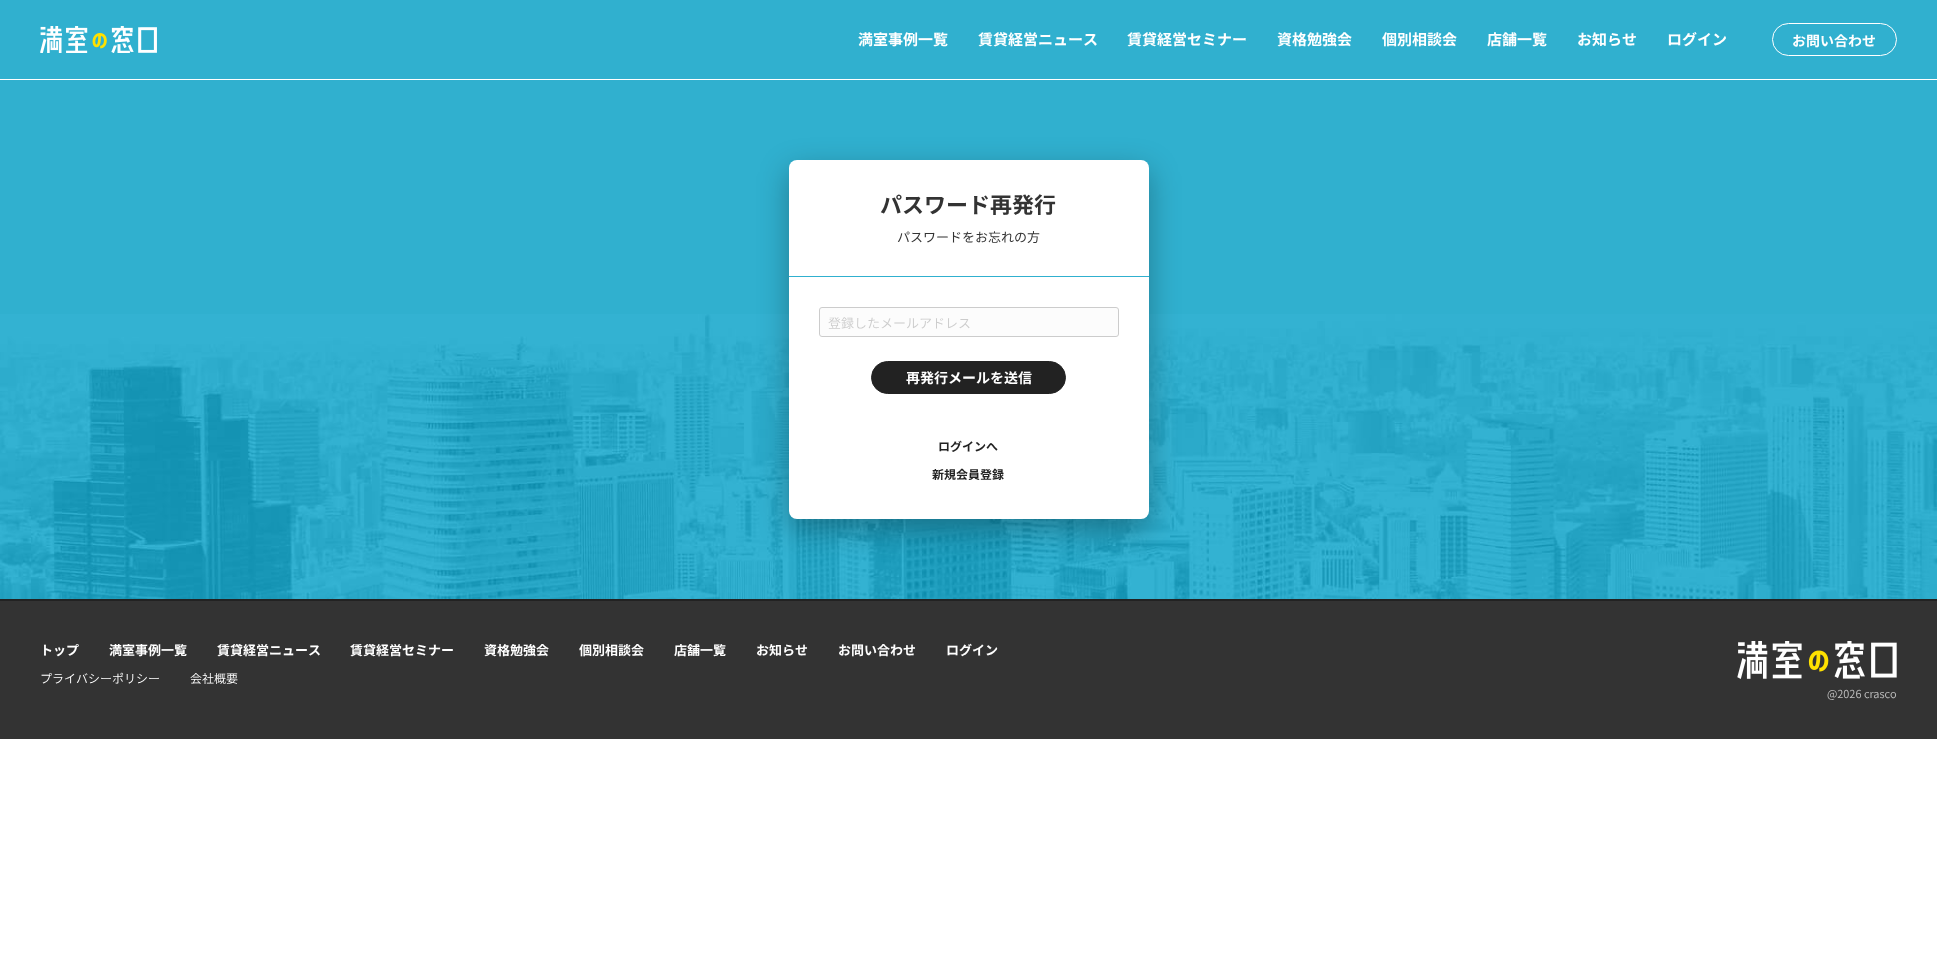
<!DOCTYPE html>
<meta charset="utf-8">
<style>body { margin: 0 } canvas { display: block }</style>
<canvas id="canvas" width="1937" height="962"></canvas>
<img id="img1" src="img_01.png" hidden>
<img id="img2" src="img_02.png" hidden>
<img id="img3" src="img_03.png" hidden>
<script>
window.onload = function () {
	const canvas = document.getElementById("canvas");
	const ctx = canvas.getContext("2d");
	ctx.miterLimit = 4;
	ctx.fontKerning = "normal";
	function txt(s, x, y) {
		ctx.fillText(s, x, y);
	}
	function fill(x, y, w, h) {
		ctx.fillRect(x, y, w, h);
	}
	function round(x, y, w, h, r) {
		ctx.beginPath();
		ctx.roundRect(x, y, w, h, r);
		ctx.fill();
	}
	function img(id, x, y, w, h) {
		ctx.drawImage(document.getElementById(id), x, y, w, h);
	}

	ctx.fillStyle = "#FFFFFF";
	fill(0, 0, 1937, 962);
	ctx.fillStyle = "#30B0CF";
	fill(0, 0, 1937, 79);
	img("img1", 40, 26, 117, 27);
	ctx.beginPath();
	ctx.roundRect(1772.5, 23.5, 124, 32, 16);
	ctx.strokeStyle = "#FFFFFF";
	ctx.stroke();
	fill(0, 80, 1937, 234);
	img("img2", 0, 314, 1937, 285);
	ctx.fillStyle = "#222222";
	fill(0, 599, 1937, 2);
	ctx.fillStyle = "rgba(0, 0, 0, 0.3)";
	ctx.filter = "blur(15px)";
	ctx.beginPath();
	ctx.roundRect(789, 170, 360, 359, 8);
	ctx.fill();
	ctx.filter = "none";
	ctx.fillStyle = "#FFFFFF";
	round(789, 160, 360, 359, 8);
	ctx.fillStyle = "#30B0CF";
	fill(789, 276, 360, 1);
	ctx.fillStyle = "#FCFCFC";
	ctx.beginPath();
	ctx.roundRect(819.5, 307.5, 299, 29, 2.5);
	ctx.fill();
	ctx.strokeStyle = "#CCCCCC";
	ctx.stroke();
	ctx.fillStyle = "#222222";
	ctx.beginPath();
	ctx.roundRect(871.5, 361.5, 194, 32, 16);
	ctx.fill();
	ctx.strokeStyle = "#222222";
	ctx.stroke();
	ctx.fillStyle = "#333333";
	fill(0, 601, 1937, 138);
	img("img3", 1737, 641, 160, 38);
	ctx.font = "bold 15px Noto Sans JP";
	ctx.fillStyle = "#FFFFFF";
	txt("満室事例一覧", 858, 45);
	txt("賃貸経営ニュース", 978, 45);
	txt("賃貸経営セミナー", 1127, 45);
	txt("資格勉強会", 1277, 45);
	txt("個別相談会", 1382, 45);
	txt("店舗一覧", 1487, 45);
	txt("お知らせ", 1577, 45);
	txt("ログイン", 1667, 45);
	ctx.font = "bold 14px Noto Sans JP";
	txt("お問い合わせ", 1792, 46);
	ctx.font = "bold 22px Noto Sans JP";
	ctx.fillStyle = "#333333";
	txt("パスワード再発行", 880, 213);
	ctx.font = "13px Noto Sans JP";
	txt("パスワードをお忘れの方", 897, 242);
	ctx.font = "300 13px Noto Sans JP";
	ctx.fillStyle = "#CCCCCC";
	txt("登録したメールアドレス", 828, 328);
	ctx.font = "bold 14px Noto Sans JP";
	ctx.fillStyle = "#FFFFFF";
	txt("再発行メールを送信", 906, 383);
	ctx.font = "bold 12px Noto Sans JP";
	ctx.fillStyle = "#222222";
	txt("ログインへ", 938, 451);
	txt("新規会員登録", 932, 479);
	ctx.font = "bold 13px Noto Sans JP";
	ctx.fillStyle = "#FFFFFF";
	txt("トップ", 40, 655);
	txt("満室事例一覧", 109, 655);
	txt("賃貸経営ニュース", 217, 655);
	txt("賃貸経営セミナー", 350, 655);
	txt("資格勉強会", 484, 655);
	txt("個別相談会", 579, 655);
	txt("店舗一覧", 674, 655);
	txt("お知らせ", 756, 655);
	txt("お問い合わせ", 838, 655);
	txt("ログイン", 946, 655);
	ctx.font = "300 12px Noto Sans JP";
	txt("プライバシーポリシー", 40, 683);
	txt("会社概要", 190, 683);
	ctx.font = "300 11px Noto Sans JP";
	ctx.fillStyle = "#C2C2C2";
	txt("@2026 crasco", 1827, 698);
};
</script>
